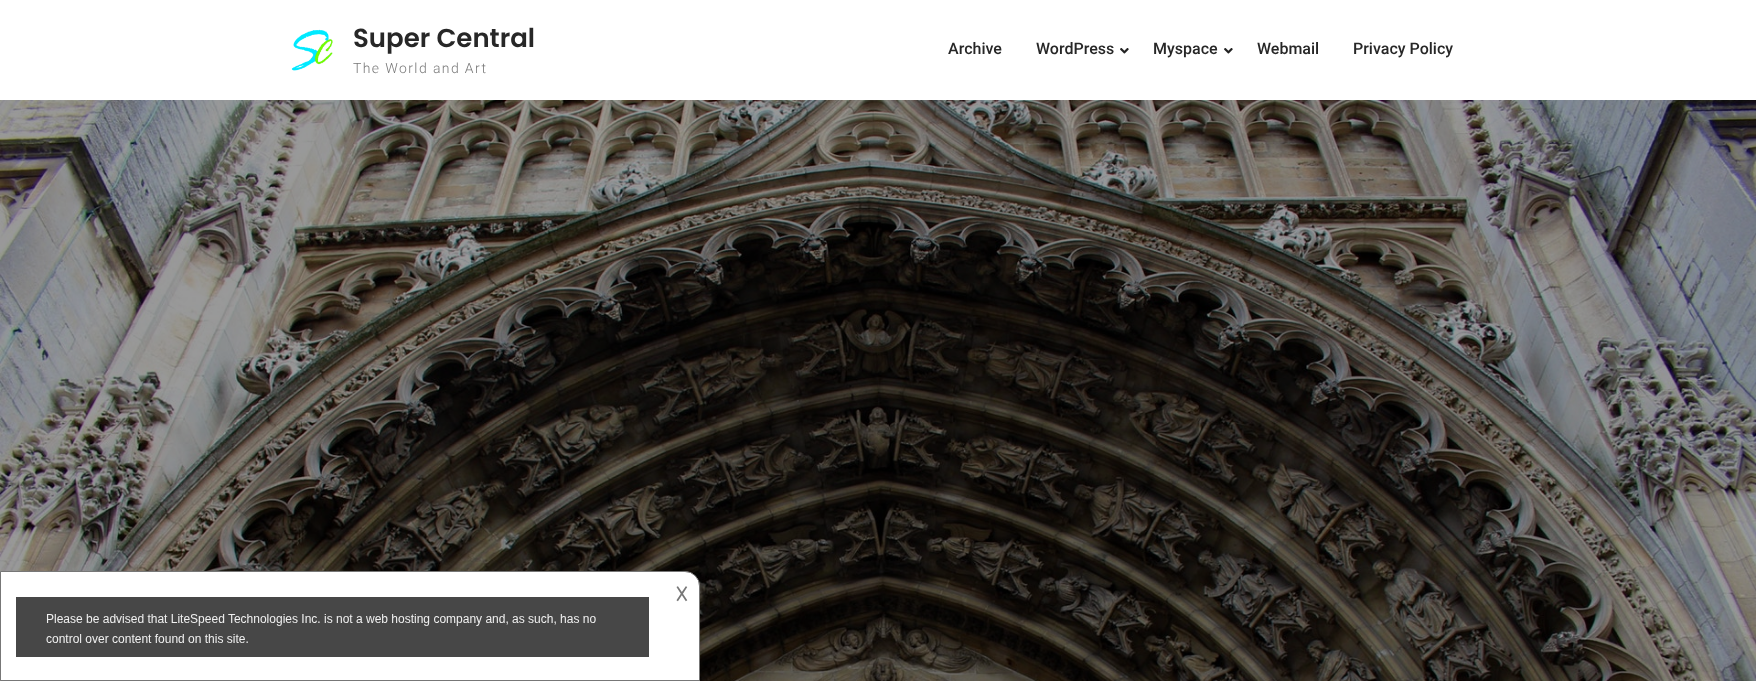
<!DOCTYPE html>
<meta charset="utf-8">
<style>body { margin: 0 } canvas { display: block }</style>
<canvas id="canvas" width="1756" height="681"></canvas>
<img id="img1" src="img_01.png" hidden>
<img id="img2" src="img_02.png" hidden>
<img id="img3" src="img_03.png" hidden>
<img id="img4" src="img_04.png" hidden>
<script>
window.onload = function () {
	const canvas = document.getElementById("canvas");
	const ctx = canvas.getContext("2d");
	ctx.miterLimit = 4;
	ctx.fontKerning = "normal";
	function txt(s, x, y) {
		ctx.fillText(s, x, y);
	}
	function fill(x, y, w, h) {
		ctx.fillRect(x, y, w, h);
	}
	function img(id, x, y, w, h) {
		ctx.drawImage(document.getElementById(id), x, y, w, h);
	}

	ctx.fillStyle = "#FFFFFF";
	fill(0, 0, 1756, 681);
	img("img1", 291, 29, 42, 42);
	img("img2", 1120, 48, 9, 6);
	img("img2", 1224, 48, 9, 6);
	img("img3", 0, 100, 1756, 581);
	ctx.beginPath();
	ctx.roundRect(0.5, 571.5, 699, 109, [0, 14.5, 0, 0]);
	ctx.fill();
	ctx.strokeStyle = "#777777";
	ctx.stroke();
	img("img4", 16, 597, 633, 60);
	ctx.font = "600 26px Poppins";
	ctx.fillStyle = "#272727";
	txt("Super Central", 353, 47);
	ctx.letterSpacing = "1.4px";
	ctx.font = "300 14px Roboto";
	ctx.fillStyle = "#777777";
	txt("The World and Art", 353, 73);
	ctx.letterSpacing = "0px";
	ctx.font = "500 16px Roboto";
	ctx.fillStyle = "#272727";
	txt("Archive", 948, 54);
	txt("WordPress", 1036, 54);
	txt("Myspace", 1153, 54);
	txt("Webmail", 1257, 54);
	txt("Privacy Policy", 1353, 54);
	ctx.font = "20px DejaVu Sans";
	ctx.fillStyle = "#777777";
	txt("𐌢", 675, 601);
};
</script>
